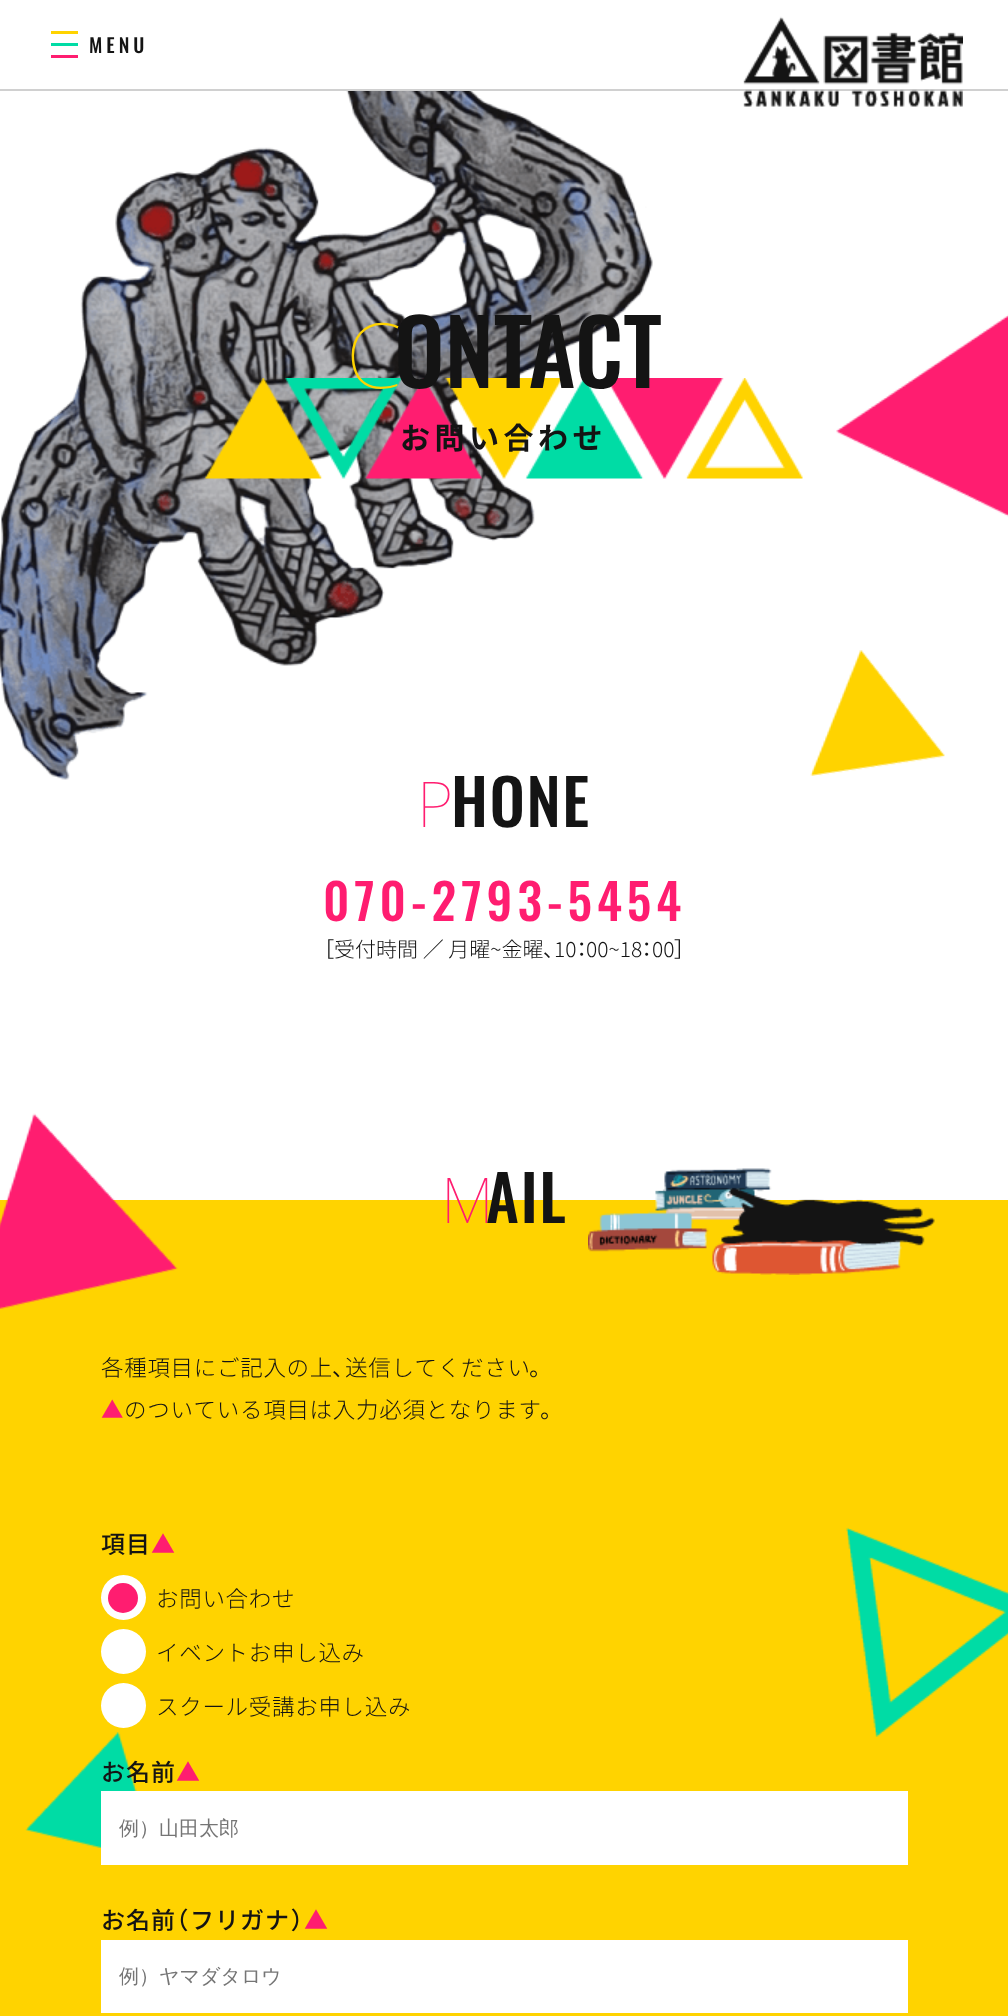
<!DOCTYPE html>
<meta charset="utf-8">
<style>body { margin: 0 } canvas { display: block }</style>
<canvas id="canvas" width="1008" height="2016"></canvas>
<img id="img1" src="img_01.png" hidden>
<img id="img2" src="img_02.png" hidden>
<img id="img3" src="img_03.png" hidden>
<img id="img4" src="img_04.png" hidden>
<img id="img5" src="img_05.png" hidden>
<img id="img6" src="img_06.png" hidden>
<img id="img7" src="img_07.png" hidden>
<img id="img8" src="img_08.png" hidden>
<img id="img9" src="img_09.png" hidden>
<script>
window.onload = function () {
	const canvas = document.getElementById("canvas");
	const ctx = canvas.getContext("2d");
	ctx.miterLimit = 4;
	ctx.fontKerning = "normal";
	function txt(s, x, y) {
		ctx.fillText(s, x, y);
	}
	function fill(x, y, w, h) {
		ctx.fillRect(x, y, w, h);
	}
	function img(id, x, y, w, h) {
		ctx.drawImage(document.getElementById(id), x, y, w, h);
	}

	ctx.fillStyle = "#FFFFFF";
	fill(0, 0, 1008, 2016);
	ctx.fillStyle = "#D0D0D0";
	fill(0, 89, 1008, 2);
	ctx.fillStyle = "#FFD300";
	fill(51, 31, 27, 3);
	ctx.fillStyle = "#00DCA5";
	fill(51, 43, 27, 3);
	ctx.fillStyle = "#FF1D70";
	fill(51, 55, 27, 3);
	img("img1", 743, 16, 220, 91);
	img("img2", 0, 91, 653, 689);
	img("img3", 205, 378, 598, 101);
	img("img4", 836, 314, 172, 203);
	img("img5", 810, 650, 135, 126);
	ctx.fillStyle = "#FFD300";
	fill(0, 1200, 1008, 816);
	img("img6", 0, 1113, 178, 196);
	img("img7", 588, 1168, 347, 107);
	img("img8", 25, 1732, 112, 116);
	ctx.fillStyle = "#FFFFFF";
	ctx.beginPath();
	ctx.arc(123.5, 1597.5, 22.5, 0, Math.PI * 2);
	ctx.fill();
	ctx.fillStyle = "#FF1D70";
	ctx.beginPath();
	ctx.arc(123, 1598, 15, 0, Math.PI * 2);
	ctx.fill();
	ctx.fillStyle = "#FFFFFF";
	ctx.beginPath();
	ctx.arc(123.5, 1651.5, 22.5, 0, Math.PI * 2);
	ctx.fill();
	ctx.beginPath();
	ctx.arc(123.5, 1705.5, 22.5, 0, Math.PI * 2);
	ctx.fill();
	fill(101, 1791, 807, 74);
	fill(101, 1940, 807, 73);
	img("img9", 846, 1527, 162, 210);
	ctx.letterSpacing = "4px";
	ctx.font = "500 19.5px Oswald";
	ctx.fillStyle = "#141414";
	txt("MENU", 89, 53);
	ctx.letterSpacing = "0px";
	ctx.font = "100 90px Noto Sans";
	ctx.fillStyle = "#FFD300";
	txt("C", 346, 388);
	ctx.font = "500 90px Oswald";
	ctx.fillStyle = "#141414";
	txt("ONTACT", 394, 388);
	ctx.letterSpacing = "4.5px";
	ctx.font = "bold 30px Noto Sans JP";
	txt("お問い合わせ", 400, 449);
	ctx.letterSpacing = "1.5px";
	ctx.font = "100 63px Noto Sans";
	ctx.fillStyle = "#FF1D70";
	txt("P", 417, 827);
	ctx.font = "500 63px Oswald";
	ctx.fillStyle = "#141414";
	txt("HONE", 451, 827);
	ctx.letterSpacing = "5px";
	ctx.font = "500 49.5px Oswald";
	ctx.fillStyle = "#FF1D70";
	txt("070-2793-5454", 323, 921);
	ctx.letterSpacing = "0px";
	ctx.font = "300 21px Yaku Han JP";
	ctx.fillStyle = "#141414";
	txt("［", 324, 957);
	ctx.font = "300 21px Noto Sans JP";
	txt("受付時間 ／ 月曜~金曜", 334, 957);
	ctx.font = "300 21px Yaku Han JP";
	txt("、", 543, 957);
	ctx.font = "300 21px Noto Sans JP";
	txt("10", 554, 957);
	ctx.font = "300 21px Yaku Han JP";
	txt("：", 577, 957);
	ctx.font = "300 21px Noto Sans JP";
	txt("00~18", 586, 957);
	ctx.font = "300 21px Yaku Han JP";
	txt("：", 642, 957);
	ctx.font = "300 21px Noto Sans JP";
	txt("00", 652, 957);
	ctx.font = "300 21px Yaku Han JP";
	txt("］", 674, 957);
	ctx.letterSpacing = "1.5px";
	ctx.font = "100 63px Noto Sans";
	ctx.fillStyle = "#FF1D70";
	txt("M", 441, 1223);
	ctx.font = "500 63px Oswald";
	ctx.fillStyle = "#141414";
	txt("AIL", 486, 1223);
	ctx.letterSpacing = "0.7px";
	ctx.font = "300 22.5px Noto Sans JP";
	txt("各種項目にご記入の上", 101, 1376);
	ctx.font = "300 22.5px Yaku Han JP";
	txt("、", 332, 1376);
	ctx.font = "300 22.5px Noto Sans JP";
	txt("送信してください", 345, 1376);
	ctx.font = "300 22.5px Yaku Han JP";
	txt("。", 529, 1376);
	ctx.font = "300 22.5px Noto Sans JP";
	ctx.fillStyle = "#FF1D70";
	txt("▲", 101, 1418);
	ctx.fillStyle = "#141414";
	txt("のついている項目は入力必須となります", 124, 1418);
	ctx.font = "300 22.5px Yaku Han JP";
	txt("。", 540, 1418);
	ctx.letterSpacing = "1px";
	ctx.font = "500 24px Noto Sans JP";
	txt("項目", 101, 1553);
	ctx.fillStyle = "#FF1D70";
	txt("▲", 151, 1553);
	ctx.letterSpacing = "0.7px";
	ctx.font = "300 22.5px Noto Sans JP";
	ctx.fillStyle = "#141414";
	txt("お問い合わせ", 156, 1607);
	txt("イベントお申し込み", 156, 1661);
	txt("スクール受講お申し込み", 156, 1715);
	ctx.letterSpacing = "1px";
	ctx.font = "500 24px Noto Sans JP";
	txt("お名前", 101, 1781);
	ctx.fillStyle = "#FF1D70";
	txt("▲", 176, 1781);
	ctx.letterSpacing = "0px";
	ctx.font = "500 20px WenQuanYi Zen Hei";
	ctx.fillStyle = "#757575";
	txt("例）山田太郎", 119, 1835);
	ctx.letterSpacing = "1px";
	ctx.font = "500 24px Noto Sans JP";
	ctx.fillStyle = "#141414";
	txt("お名前", 101, 1929);
	ctx.font = "500 24px Yaku Han JP";
	txt("（", 176, 1929);
	ctx.font = "500 24px Noto Sans JP";
	txt("フリガナ", 190, 1929);
	ctx.font = "500 24px Yaku Han JP";
	txt("）", 291, 1929);
	ctx.font = "500 24px Noto Sans JP";
	ctx.fillStyle = "#FF1D70";
	txt("▲", 304, 1929);
	ctx.letterSpacing = "0px";
	ctx.font = "500 20px WenQuanYi Zen Hei";
	ctx.fillStyle = "#757575";
	txt("例）ヤマダタロウ", 119, 1983);
};
</script>
